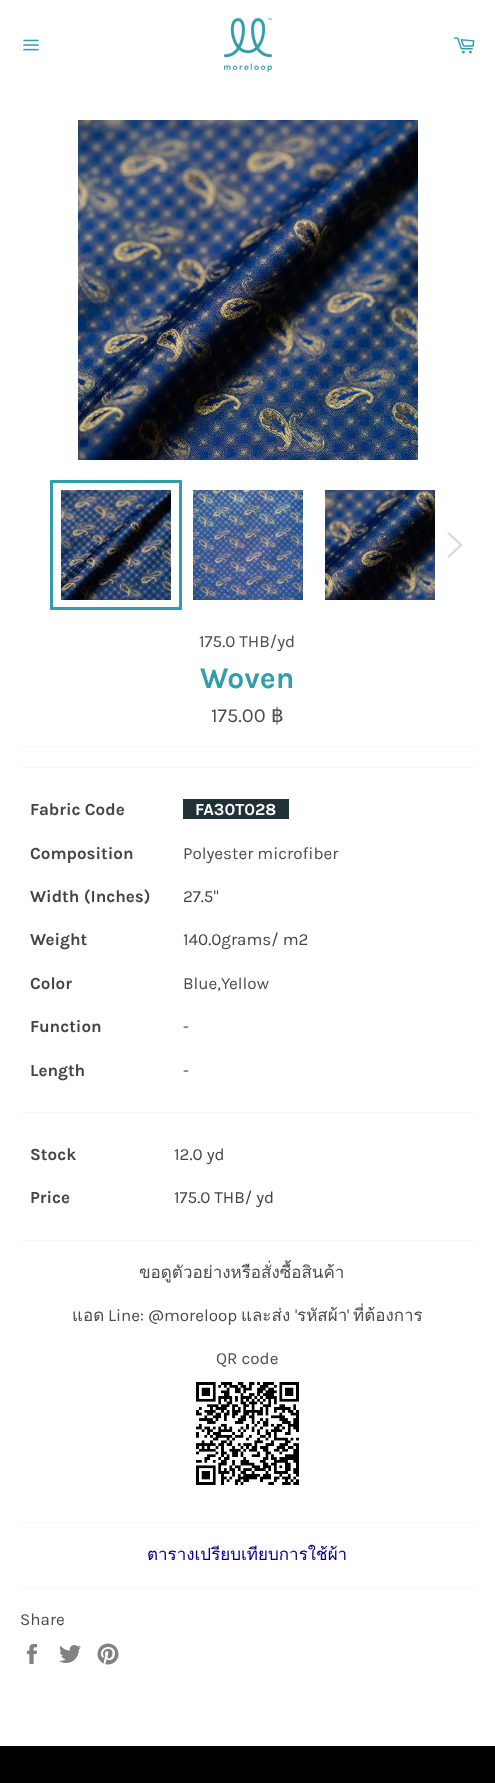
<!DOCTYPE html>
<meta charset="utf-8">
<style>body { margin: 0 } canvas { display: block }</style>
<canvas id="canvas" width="495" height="1783"></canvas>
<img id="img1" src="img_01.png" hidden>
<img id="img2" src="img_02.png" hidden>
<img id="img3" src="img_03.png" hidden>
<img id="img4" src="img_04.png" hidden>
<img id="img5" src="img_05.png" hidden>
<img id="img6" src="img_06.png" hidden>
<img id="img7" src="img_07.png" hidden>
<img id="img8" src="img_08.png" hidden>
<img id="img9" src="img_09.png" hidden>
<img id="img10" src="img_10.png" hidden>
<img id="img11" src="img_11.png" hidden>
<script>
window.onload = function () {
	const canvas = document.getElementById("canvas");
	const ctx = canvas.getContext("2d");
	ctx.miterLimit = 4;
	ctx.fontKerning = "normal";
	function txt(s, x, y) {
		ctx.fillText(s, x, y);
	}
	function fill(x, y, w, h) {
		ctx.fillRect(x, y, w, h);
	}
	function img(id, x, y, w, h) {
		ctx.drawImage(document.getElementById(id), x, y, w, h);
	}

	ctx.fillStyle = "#FFFFFF";
	fill(0, 0, 495, 1783);
	img("img1", 23, 39, 16, 12);
	img("img2", 224, 17, 48, 55);
	img("img3", 453, 37, 22, 17);
	img("img4", 78, 120, 340, 340);
	img("img5", 61, 490, 110, 110);
	ctx.strokeStyle = "#329DAB";
	ctx.lineWidth = 3;
	ctx.strokeRect(51.5, 481.5, 129, 127);
	img("img6", 193, 490, 110, 110);
	img("img7", 325, 490, 110, 110);
	ctx.fillStyle = "#DBDBDB";
	ctx.beginPath();
	ctx.moveTo(447, 533.5);
	ctx.lineTo(449, 532);
	ctx.lineTo(463, 545);
	ctx.lineTo(449, 558);
	ctx.lineTo(447, 556.5);
	ctx.lineTo(459.5, 545);
	ctx.closePath();
	ctx.fill();
	ctx.fillStyle = "#F8F8F8";
	fill(20, 746, 455, 1);
	fill(20, 767, 455, 1);
	ctx.fillStyle = "#213236";
	fill(183, 799, 106, 20);
	ctx.fillStyle = "#F8F8F8";
	fill(20, 1112, 455, 1);
	fill(20, 1240, 455, 1);
	img("img8", 196, 1382, 103, 103);
	fill(20, 1522, 455, 1);
	fill(20, 1587, 455, 1);
	img("img9", 27, 1644, 10, 20);
	img("img10", 59, 1645, 22, 18);
	img("img11", 97, 1643, 22, 22);
	ctx.fillStyle = "#000000";
	fill(0, 1746, 495, 37);
	ctx.font = "17px Karla";
	ctx.fillStyle = "#4C4C4C";
	txt("175.0 THB/yd", 199, 647);
	ctx.font = "bold 30px Karla";
	ctx.fillStyle = "#329DAB";
	txt("Woven", 200, 688);
	ctx.font = "20px Karla";
	ctx.fillStyle = "#4C4C4C";
	txt("175.00", 211, 722);
	ctx.font = "20px DejaVu Sans";
	txt("฿", 271, 722);
	ctx.font = "bold 17px Karla";
	ctx.fillStyle = "#444444";
	txt("Fabric Code", 30, 815);
	ctx.fillStyle = "#FFFFFF";
	txt("FA30T028", 195, 815);
	ctx.fillStyle = "#444444";
	txt("Composition", 30, 859);
	ctx.font = "17px Karla";
	ctx.fillStyle = "#4C4C4C";
	txt("Polyester microfiber", 183, 859);
	ctx.font = "bold 17px Karla";
	ctx.fillStyle = "#444444";
	txt("Width (Inches)", 30, 902);
	ctx.font = "17px Karla";
	txt("27.5\"", 183, 902);
	ctx.font = "bold 17px Karla";
	txt("Weight", 30, 945);
	ctx.font = "17px Karla";
	txt("140.0grams/ m2", 183, 945);
	ctx.font = "bold 17px Karla";
	txt("Color", 30, 989);
	ctx.font = "17px Karla";
	ctx.fillStyle = "#4C4C4C";
	txt("Blue,Yellow", 183, 989);
	ctx.font = "bold 17px Karla";
	ctx.fillStyle = "#444444";
	txt("Function", 30, 1032);
	ctx.font = "17px Karla";
	ctx.fillStyle = "#4C4C4C";
	txt("-", 183, 1032);
	ctx.font = "bold 17px Karla";
	ctx.fillStyle = "#444444";
	txt("Length", 30, 1076);
	ctx.font = "17px Karla";
	ctx.fillStyle = "#4C4C4C";
	txt("-", 183, 1076);
	ctx.font = "bold 17px Karla";
	ctx.fillStyle = "#444444";
	txt("Stock", 30, 1160);
	ctx.font = "17px Karla";
	txt("12.0 yd", 174, 1160);
	ctx.font = "bold 17px Karla";
	txt("Price", 30, 1203);
	ctx.font = "17px Karla";
	txt("175.0 THB/ yd", 174, 1203);
	ctx.font = "17px Loma";
	ctx.fillStyle = "#4C4C4C";
	txt("ขอดูตัวอย่างหรือสั่งซื้อสินค้า", 139, 1278);
	ctx.font = "17px Karla";
	txt("Line: @moreloop", 108, 1321);
	ctx.font = "17px Loma";
	txt("และส่ง", 241, 1321);
	ctx.font = "17px Karla";
	txt("'", 295, 1321);
	ctx.font = "17px Loma";
	txt("รหัสผ้า", 297, 1321);
	txt("แอด", 72, 1321);
	ctx.font = "17px Karla";
	txt("'", 347, 1321);
	ctx.font = "17px Loma";
	txt("ที่ต้องการ", 353, 1321);
	ctx.font = "17px Karla";
	txt("QR code", 216, 1364);
	ctx.font = "17px Loma";
	ctx.fillStyle = "#00008B";
	txt("ตารางเปรียบเทียบการใช้ผ้า", 147, 1560);
	ctx.font = "17px Karla";
	ctx.fillStyle = "#4C4C4C";
	txt("Share", 20, 1625);
};
</script>
